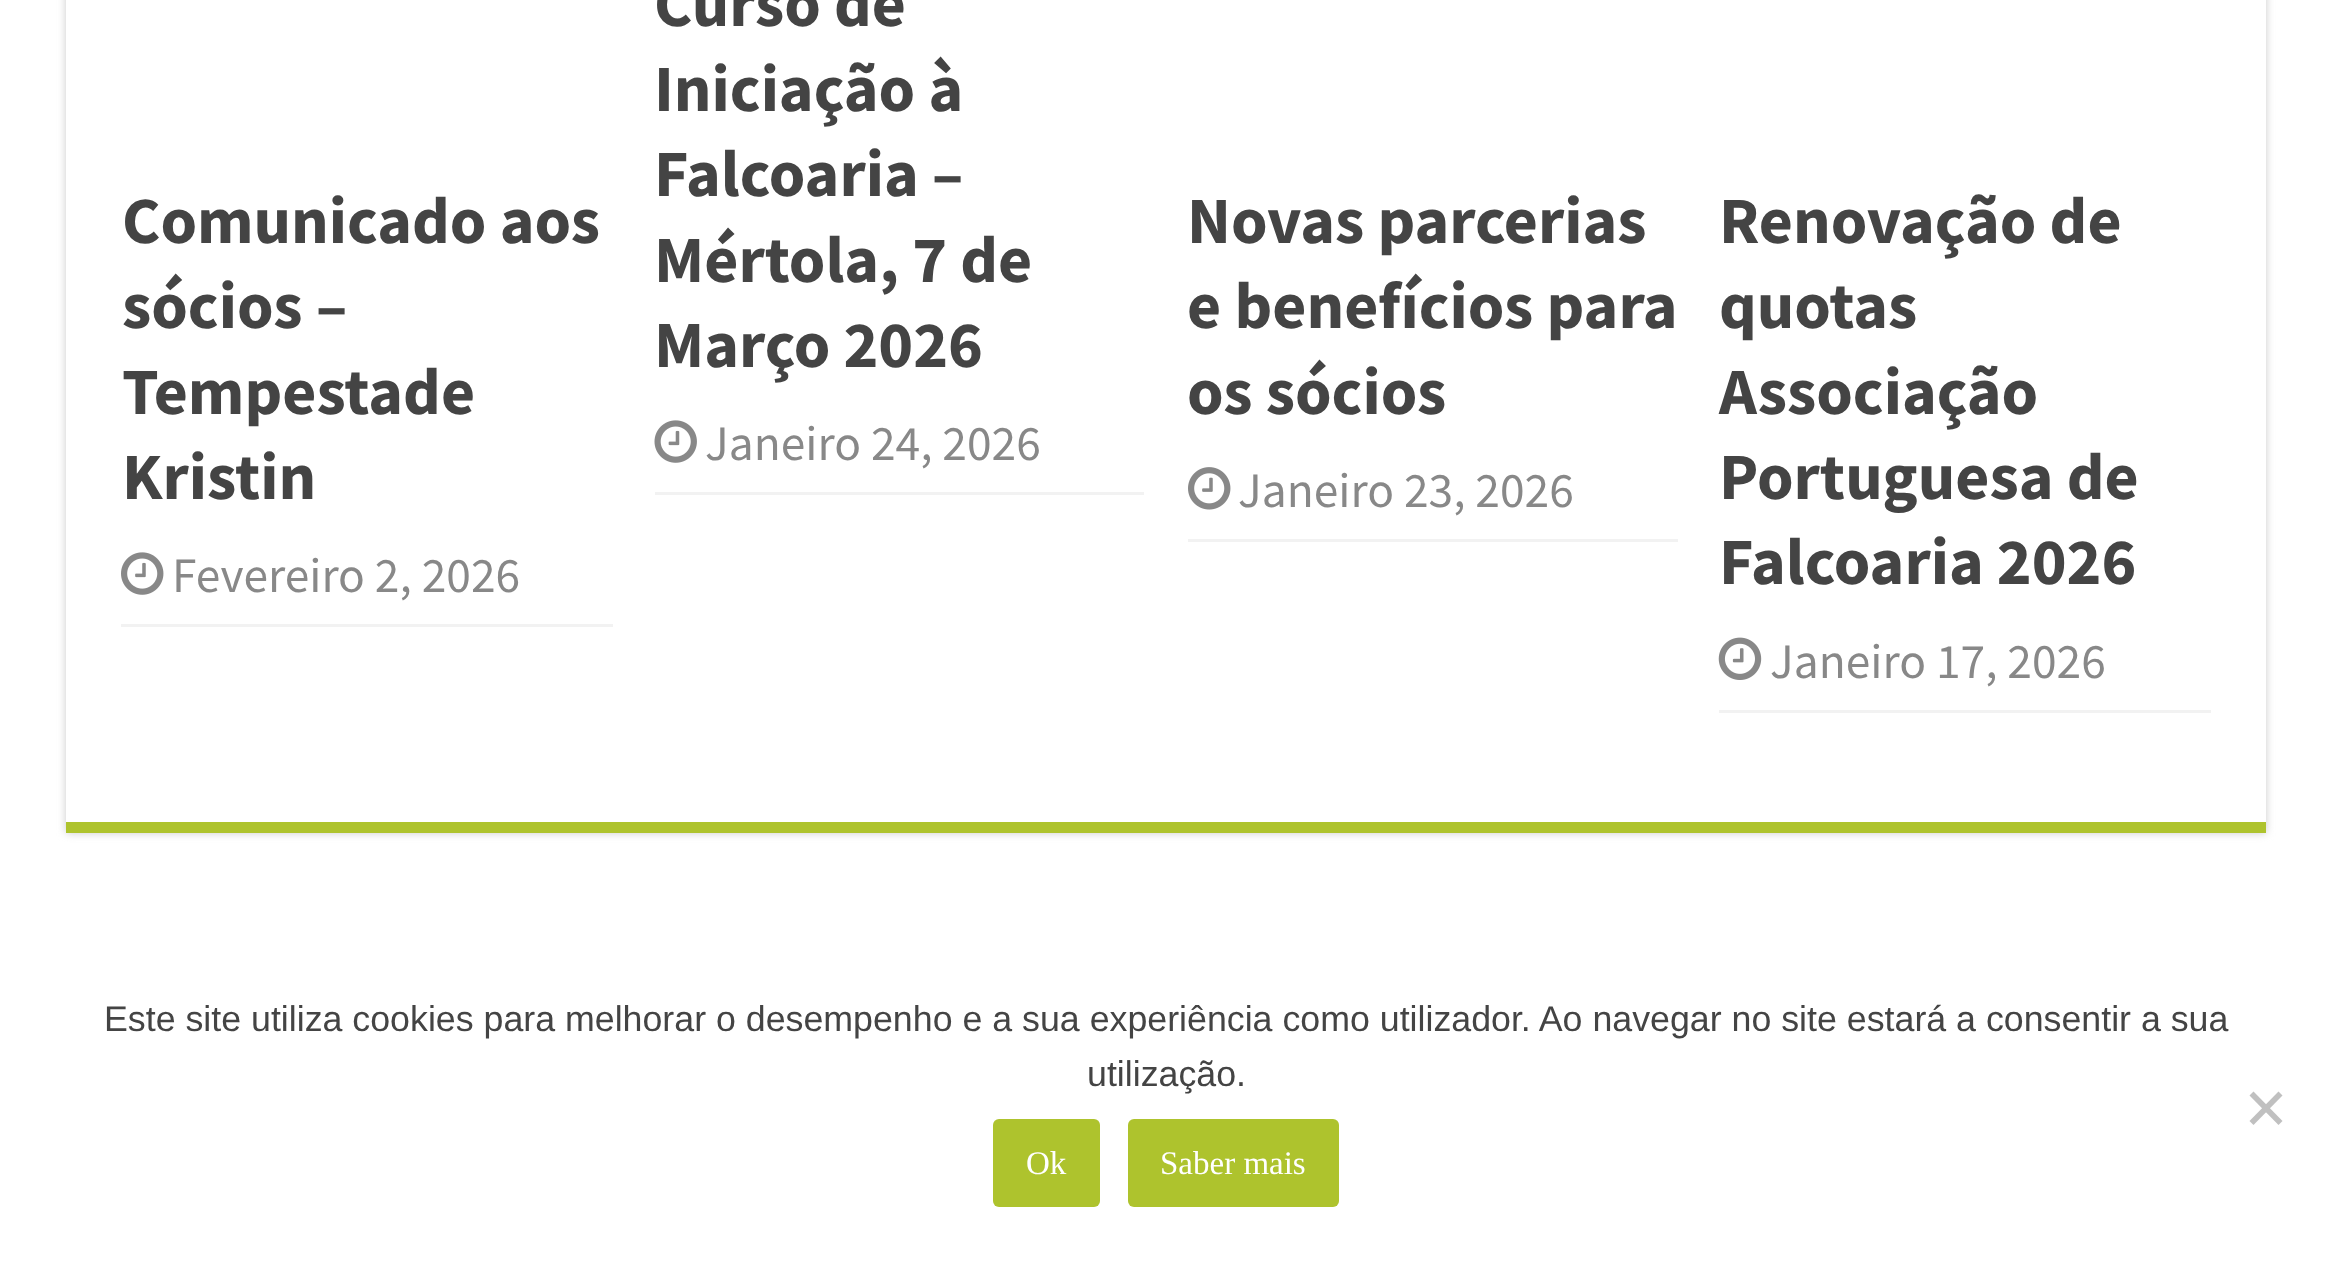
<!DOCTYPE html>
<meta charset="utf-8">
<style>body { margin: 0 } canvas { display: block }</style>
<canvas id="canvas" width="2331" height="1261"></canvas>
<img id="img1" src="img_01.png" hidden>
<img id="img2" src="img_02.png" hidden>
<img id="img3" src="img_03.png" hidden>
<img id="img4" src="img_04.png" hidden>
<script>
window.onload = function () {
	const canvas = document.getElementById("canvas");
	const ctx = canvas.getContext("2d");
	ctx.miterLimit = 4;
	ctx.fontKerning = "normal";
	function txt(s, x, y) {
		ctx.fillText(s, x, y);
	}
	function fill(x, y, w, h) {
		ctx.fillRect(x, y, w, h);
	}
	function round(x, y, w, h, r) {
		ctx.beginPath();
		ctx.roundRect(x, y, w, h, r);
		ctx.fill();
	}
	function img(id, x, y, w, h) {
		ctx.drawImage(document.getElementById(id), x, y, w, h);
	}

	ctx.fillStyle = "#FFFFFF";
	fill(0, 0, 2331, 1261);
	ctx.save();
	ctx.beginPath();
	ctx.moveTo(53, 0);
	ctx.lineTo(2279, 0);
	ctx.lineTo(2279, 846);
	ctx.lineTo(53, 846);
	ctx.closePath();
	ctx.moveTo(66, -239);
	ctx.lineTo(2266, -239);
	ctx.lineTo(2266, 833);
	ctx.lineTo(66, 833);
	ctx.closePath();
	ctx.clip("evenodd");
	ctx.fillStyle = "#CACACA";
	ctx.filter = "blur(4px)";
	ctx.beginPath();
	ctx.rect(66, -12, 2200, 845);
	ctx.fill();
	ctx.filter = "none";
	ctx.restore();
	ctx.fillStyle = "#AEC32D";
	fill(66, 822, 2200, 11);
	ctx.fillStyle = "#F2F2F2";
	fill(121, 624, 492, 3);
	img("img1", 121, 552, 43, 43);
	fill(655, 492, 489, 3);
	img("img2", 654, 420, 43, 43);
	fill(1188, 539, 490, 3);
	img("img3", 1188, 467, 43, 43);
	fill(1719, 710, 492, 3);
	img("img4", 1718, 637, 44, 43);
	ctx.fillStyle = "#C0C0C0";
	ctx.beginPath();
	ctx.moveTo(2278.5, 1091.5);
	ctx.lineTo(2282.5, 1095.5);
	ctx.lineTo(2253.5, 1125);
	ctx.lineTo(2249.5, 1121);
	ctx.closePath();
	ctx.fill();
	ctx.beginPath();
	ctx.moveTo(2249.5, 1095.5);
	ctx.lineTo(2253.5, 1091.5);
	ctx.lineTo(2282.5, 1121);
	ctx.lineTo(2278.5, 1125);
	ctx.closePath();
	ctx.fill();
	ctx.fillStyle = "#AEC32D";
	round(993, 1119, 107, 88, 6);
	round(1128, 1119, 211, 88, 6);
	ctx.font = "bold 66px Source Sans Pro";
	ctx.fillStyle = "#444444";
	txt("Comunicado aos", 122, 243);
	txt("sócios –", 122, 328);
	txt("Tempestade", 122, 414);
	txt("Kristin", 122, 499);
	ctx.font = "49.5px Source Sans Pro";
	ctx.fillStyle = "#888888";
	txt("Fevereiro 2, 2026", 172, 592);
	ctx.font = "bold 66px Source Sans Pro";
	ctx.fillStyle = "#444444";
	txt("Curso de", 654, 26);
	txt("Iniciação à", 654, 111);
	txt("Falcoaria –", 654, 196);
	txt("Mértola, 7 de", 654, 282);
	txt("Março 2026", 654, 367);
	ctx.font = "49.5px Source Sans Pro";
	ctx.fillStyle = "#888888";
	txt("Janeiro 24, 2026", 705, 460);
	ctx.font = "bold 66px Source Sans Pro";
	ctx.fillStyle = "#444444";
	txt("Novas parcerias", 1187, 243);
	txt("e benefícios para", 1187, 328);
	txt("os sócios", 1187, 414);
	ctx.font = "49.5px Source Sans Pro";
	ctx.fillStyle = "#888888";
	txt("Janeiro 23, 2026", 1238, 507);
	ctx.font = "bold 66px Source Sans Pro";
	ctx.fillStyle = "#444444";
	txt("Renovação de", 1719, 243);
	txt("quotas", 1719, 328);
	txt("Associação", 1719, 414);
	txt("Portuguesa de", 1719, 499);
	txt("Falcoaria 2026", 1719, 584);
	ctx.font = "49.5px Source Sans Pro";
	ctx.fillStyle = "#888888";
	txt("Janeiro 17, 2026", 1770, 678);
	ctx.font = "35.75px Liberation Sans";
	ctx.fillStyle = "#444444";
	txt("Este site utiliza cookies para melhorar o desempenho e a sua experiência como utilizador. Ao navegar no site estará a consentir a sua", 104, 1031);
	txt("utilização.", 1087, 1086);
	ctx.font = "33px Liberation Serif";
	ctx.fillStyle = "#FFFFFF";
	txt("Ok", 1026, 1174);
	txt("Saber mais", 1160, 1174);
};
</script>
